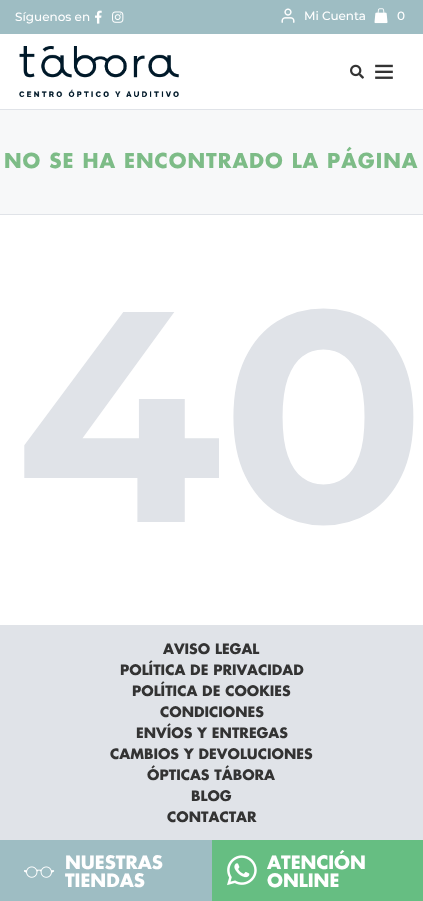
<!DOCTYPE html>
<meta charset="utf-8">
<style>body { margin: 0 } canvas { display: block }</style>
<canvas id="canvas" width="423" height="901"></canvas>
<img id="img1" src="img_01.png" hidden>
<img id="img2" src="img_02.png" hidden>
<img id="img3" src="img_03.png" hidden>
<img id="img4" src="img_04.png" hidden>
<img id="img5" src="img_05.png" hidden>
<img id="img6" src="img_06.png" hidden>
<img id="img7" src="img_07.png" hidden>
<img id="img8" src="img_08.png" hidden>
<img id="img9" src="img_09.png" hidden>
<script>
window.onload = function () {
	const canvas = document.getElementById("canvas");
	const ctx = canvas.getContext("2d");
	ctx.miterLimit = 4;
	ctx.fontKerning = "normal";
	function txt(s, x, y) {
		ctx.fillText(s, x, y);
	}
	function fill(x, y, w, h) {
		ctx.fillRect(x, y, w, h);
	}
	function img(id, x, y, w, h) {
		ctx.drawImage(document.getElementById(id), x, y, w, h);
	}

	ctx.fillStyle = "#FFFFFF";
	fill(0, 0, 423, 901);
	ctx.fillStyle = "#9EBDC3";
	fill(0, 0, 423, 34);
	img("img1", 95, 10, 7, 14);
	img("img2", 112, 11, 12, 12);
	img("img3", 281, 8, 14, 15);
	img("img4", 374, 8, 14, 16);
	ctx.fillStyle = "#E0E3E8";
	fill(0, 109, 423, 1);
	img("img5", 19, 46, 160, 51);
	img("img6", 350, 64, 14, 15);
	img("img7", 375, 64, 18, 15);
	ctx.fillStyle = "#F7F8F9";
	fill(0, 110, 423, 104);
	ctx.fillStyle = "#E0E3E8";
	fill(0, 214, 423, 1);
	fill(0, 625, 423, 215);
	ctx.fillStyle = "#9EBDC3";
	fill(0, 840, 212, 61);
	img("img8", 24, 866, 31, 12);
	ctx.fillStyle = "#66BE82";
	fill(212, 840, 211, 61);
	img("img9", 227, 855, 30, 31);
	ctx.font = "500 12px Montserrat";
	ctx.fillStyle = "#FFFFFF";
	txt("Síguenos en", 15, 21);
	txt("Mi Cuenta", 304, 20);
	txt("0", 397, 20);
	ctx.letterSpacing = "1px";
	ctx.font = "bold 20px Futura";
	ctx.fillStyle = "#7DBC87";
	txt("NO SE HA ENCONTRADO LA PÁGINA", 4, 168);
	ctx.letterSpacing = "0px";
	ctx.font = "bold 300px Montserrat";
	ctx.fillStyle = "#E0E3E8";
	txt("40", 15, 522);
	ctx.font = "bold 14px Futura";
	ctx.fillStyle = "#333333";
	txt("AVISO LEGAL", 163, 654);
	txt("POLÍTICA DE PRIVACIDAD", 120, 675);
	txt("POLÍTICA DE COOKIES", 132, 696);
	txt("CONDICIONES", 160, 717);
	txt("ENVÍOS Y ENTREGAS", 136, 738);
	txt("CAMBIOS Y DEVOLUCIONES", 110, 759);
	txt("ÓPTICAS TÁBORA", 147, 780);
	txt("BLOG", 191, 801);
	txt("CONTACTAR", 167, 822);
	ctx.font = "bold 18px Futura";
	ctx.fillStyle = "#FFFFFF";
	txt("NUESTRAS", 65, 869);
	txt("TIENDAS", 65, 887);
	txt("ATENCIÓN", 267, 869);
	txt("ONLINE", 267, 887);
};
</script>
